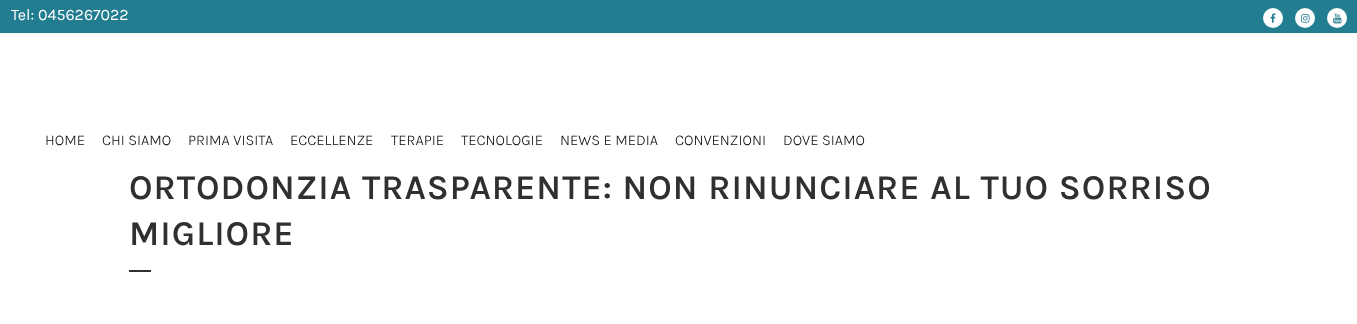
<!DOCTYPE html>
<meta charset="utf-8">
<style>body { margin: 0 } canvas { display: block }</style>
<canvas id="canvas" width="1357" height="324"></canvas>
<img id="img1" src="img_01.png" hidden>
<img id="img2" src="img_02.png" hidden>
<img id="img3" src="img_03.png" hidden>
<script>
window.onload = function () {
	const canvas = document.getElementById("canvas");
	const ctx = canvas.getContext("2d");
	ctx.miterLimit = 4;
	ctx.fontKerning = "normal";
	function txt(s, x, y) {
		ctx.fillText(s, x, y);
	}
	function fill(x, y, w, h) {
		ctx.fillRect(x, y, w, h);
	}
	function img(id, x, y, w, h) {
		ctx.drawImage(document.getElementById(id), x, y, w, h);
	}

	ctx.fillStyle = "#FFFFFF";
	fill(0, 0, 1357, 324);
	ctx.fillStyle = "#227D90";
	fill(0, 0, 1357, 33);
	ctx.fillStyle = "#FFFFFF";
	ctx.beginPath();
	ctx.arc(1273, 18, 10, 0, Math.PI * 2);
	ctx.fill();
	img("img1", 1270, 13, 6, 10);
	ctx.beginPath();
	ctx.arc(1305, 18, 10, 0, Math.PI * 2);
	ctx.fill();
	img("img2", 1301, 14, 9, 9);
	ctx.beginPath();
	ctx.arc(1337, 18, 10, 0, Math.PI * 2);
	ctx.fill();
	img("img3", 1333, 13, 9, 11);
	ctx.fillStyle = "#303030";
	fill(129, 270, 22, 2);
	ctx.font = "16px Karla";
	ctx.fillStyle = "#FFFFFF";
	txt("Tel: 0456267022", 11, 20);
	ctx.font = "300 15px Karla";
	ctx.fillStyle = "#0A0A0A";
	txt("HOME", 45, 145);
	txt("CHI SIAMO", 102, 145);
	txt("PRIMA VISITA", 188, 145);
	txt("ECCELLENZE", 290, 145);
	txt("TERAPIE", 391, 145);
	txt("TECNOLOGIE", 461, 145);
	txt("NEWS E MEDIA", 560, 145);
	txt("CONVENZIONI", 675, 145);
	txt("DOVE SIAMO", 783, 145);
	ctx.letterSpacing = "1px";
	ctx.font = "600 35px Karla";
	ctx.fillStyle = "#303030";
	txt("ORTODONZIA TRASPARENTE: NON RINUNCIARE AL TUO SORRISO", 129, 199);
	txt("MIGLIORE", 129, 245);
};
</script>
